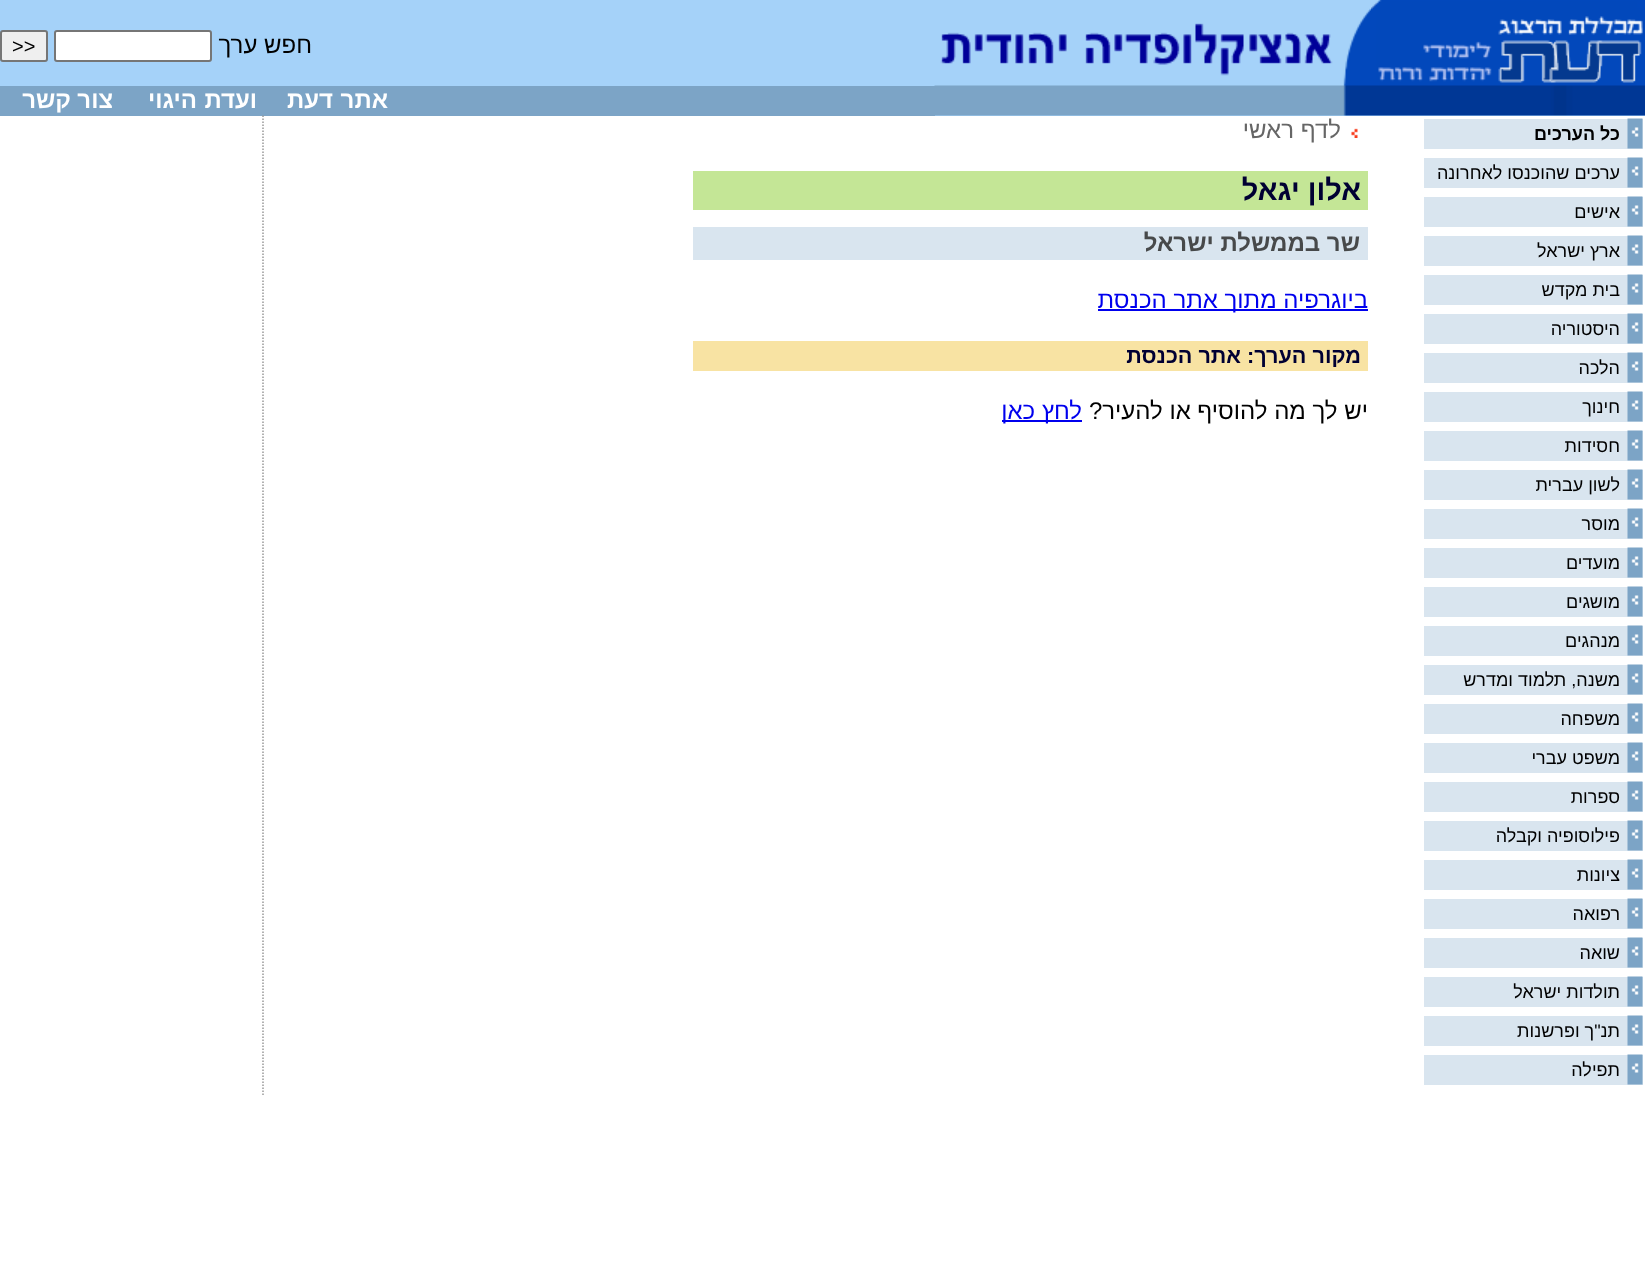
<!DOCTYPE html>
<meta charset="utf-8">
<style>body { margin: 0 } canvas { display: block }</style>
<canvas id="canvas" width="1645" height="1283"></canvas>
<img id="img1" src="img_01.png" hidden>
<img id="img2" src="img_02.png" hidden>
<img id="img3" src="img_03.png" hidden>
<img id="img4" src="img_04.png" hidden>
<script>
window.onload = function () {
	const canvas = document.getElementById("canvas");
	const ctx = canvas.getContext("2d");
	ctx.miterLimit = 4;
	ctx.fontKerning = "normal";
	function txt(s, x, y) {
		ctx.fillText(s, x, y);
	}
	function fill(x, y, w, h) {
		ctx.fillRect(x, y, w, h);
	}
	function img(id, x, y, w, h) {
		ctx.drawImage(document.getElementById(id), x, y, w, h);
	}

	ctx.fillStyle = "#FFFFFF";
	fill(0, 0, 1645, 1283);
	ctx.fillStyle = "#A5D2F9";
	fill(1371, 115, 274, 1);
	img("img1", 1371, 0, 274, 116);
	fill(935, 0, 436, 116);
	fill(0, 0, 935, 86);
	ctx.fillStyle = "#7CA4C6";
	fill(0, 86, 935, 30);
	img("img2", 934, 8, 437, 108);
	ctx.fillStyle = "#FFFFFF";
	ctx.beginPath();
	ctx.roundRect(55, 31, 156, 30, 2);
	ctx.fill();
	ctx.strokeStyle = "#767676";
	ctx.lineWidth = 2;
	ctx.stroke();
	ctx.fillStyle = "#EFEFEF";
	ctx.beginPath();
	ctx.roundRect(1, 31, 46, 30, 2);
	ctx.fill();
	ctx.stroke();
	ctx.fillStyle = "#D9E5EF";
	fill(1424, 119, 219, 30);
	img("img3", 1627, 118, 16, 31);
	fill(1424, 158, 219, 30);
	img("img3", 1627, 157, 16, 31);
	fill(1424, 197, 219, 30);
	img("img3", 1627, 196, 16, 31);
	fill(1424, 236, 219, 30);
	img("img3", 1627, 235, 16, 31);
	fill(1424, 275, 219, 30);
	img("img3", 1627, 274, 16, 31);
	fill(1424, 314, 219, 30);
	img("img3", 1627, 313, 16, 31);
	fill(1424, 353, 219, 30);
	img("img3", 1627, 352, 16, 31);
	fill(1424, 392, 219, 30);
	img("img3", 1627, 391, 16, 31);
	fill(1424, 431, 219, 30);
	img("img3", 1627, 430, 16, 31);
	fill(1424, 470, 219, 30);
	img("img3", 1627, 469, 16, 31);
	fill(1424, 509, 219, 30);
	img("img3", 1627, 508, 16, 31);
	fill(1424, 548, 219, 30);
	img("img3", 1627, 547, 16, 31);
	fill(1424, 587, 219, 30);
	img("img3", 1627, 586, 16, 31);
	fill(1424, 626, 219, 30);
	img("img3", 1627, 625, 16, 31);
	fill(1424, 665, 219, 30);
	img("img3", 1627, 664, 16, 31);
	fill(1424, 704, 219, 30);
	img("img3", 1627, 703, 16, 31);
	fill(1424, 743, 219, 30);
	img("img3", 1627, 742, 16, 31);
	fill(1424, 782, 219, 30);
	img("img3", 1627, 781, 16, 31);
	fill(1424, 821, 219, 30);
	img("img3", 1627, 820, 16, 31);
	fill(1424, 860, 219, 30);
	img("img3", 1627, 859, 16, 31);
	fill(1424, 899, 219, 30);
	img("img3", 1627, 898, 16, 31);
	fill(1424, 938, 219, 30);
	img("img3", 1627, 937, 16, 31);
	fill(1424, 977, 219, 30);
	img("img3", 1627, 976, 16, 31);
	fill(1424, 1016, 219, 30);
	img("img3", 1627, 1015, 16, 31);
	fill(1424, 1055, 219, 30);
	img("img3", 1627, 1054, 16, 31);
	ctx.beginPath();
	ctx.moveTo(263, 115.5);
	ctx.lineTo(263, 1096.5);
	ctx.strokeStyle = "#999999";
	ctx.lineWidth = 1.5;
	ctx.setLineDash([1.5, 1.5]);
	ctx.stroke();
	img("img4", 1351, 128, 7, 10);
	ctx.fillStyle = "#C4E696";
	fill(693, 171, 675, 39);
	ctx.fillStyle = "#D9E5EF";
	fill(693, 227, 675, 33);
	ctx.fillStyle = "#0000EE";
	fill(1098, 309, 270, 2);
	ctx.fillStyle = "#F8E3A3";
	fill(693, 341, 675, 30);
	ctx.fillStyle = "#0000EE";
	fill(1002, 420, 80, 2);
	ctx.direction = "rtl";
	ctx.font = "24px Liberation Sans";
	ctx.fillStyle = "#000000";
	txt("חפש ערך", 312, 53);
	ctx.direction = "ltr";
	ctx.font = "20px Liberation Sans";
	txt(">>", 12, 53);
	ctx.direction = "rtl";
	ctx.font = "bold 24px Liberation Sans";
	ctx.fillStyle = "#FFFFFF";
	txt("אתר", 388, 108);
	txt("דעת", 333, 108);
	txt("ועדת", 257, 108);
	txt("היגוי", 197, 108);
	txt("צור", 113, 108);
	txt("קשר", 71, 108);
	ctx.font = "bold 18px Liberation Sans";
	ctx.fillStyle = "#000000";
	txt("כל הערכים", 1620, 140);
	ctx.font = "18px Liberation Sans";
	txt("ערכים שהוכנסו לאחרונה", 1620, 179);
	txt("אישים", 1620, 218);
	txt("ארץ ישראל", 1620, 257);
	txt("בית מקדש", 1620, 296);
	txt("היסטוריה", 1620, 335);
	txt("הלכה", 1620, 374);
	txt("חינוך", 1620, 413);
	txt("חסידות", 1620, 452);
	txt("לשון עברית", 1620, 491);
	txt("מוסר", 1620, 530);
	txt("מועדים", 1620, 569);
	txt("מושגים", 1620, 608);
	txt("מנהגים", 1620, 647);
	txt("משנה, תלמוד ומדרש", 1620, 686);
	txt("משפחה", 1620, 725);
	txt("משפט עברי", 1620, 764);
	txt("ספרות", 1620, 803);
	txt("פילוסופיה וקבלה", 1620, 842);
	txt("ציונות", 1620, 881);
	txt("רפואה", 1620, 920);
	txt("שואה", 1620, 959);
	txt("תולדות ישראל", 1620, 998);
	txt("תנ\"ך ופרשנות", 1620, 1037);
	txt("תפילה", 1620, 1076);
	ctx.font = "24px Liberation Sans";
	ctx.fillStyle = "#666666";
	txt("לדף", 1341, 138);
	txt("ראשי", 1294, 138);
	ctx.font = "bold 29px Liberation Sans";
	ctx.fillStyle = "#000033";
	txt("אלון יגאל", 1361, 200);
	ctx.font = "bold 24px Liberation Sans";
	ctx.fillStyle = "#47494A";
	txt("שר בממשלת ישראל", 1360, 251);
	ctx.font = "24px Liberation Sans";
	ctx.fillStyle = "#0000EE";
	txt("ביוגרפיה מתוך אתר הכנסת", 1368, 308);
	ctx.font = "bold 21.6px Liberation Sans";
	ctx.fillStyle = "#000033";
	txt("מקור הערך: אתר הכנסת", 1361, 363);
	ctx.font = "24px Liberation Sans";
	ctx.fillStyle = "#000000";
	txt("יש לך מה להוסיף או להעיר?", 1368, 419);
	ctx.fillStyle = "#0000EE";
	txt("לחץ כאן", 1082, 419);
};
</script>
